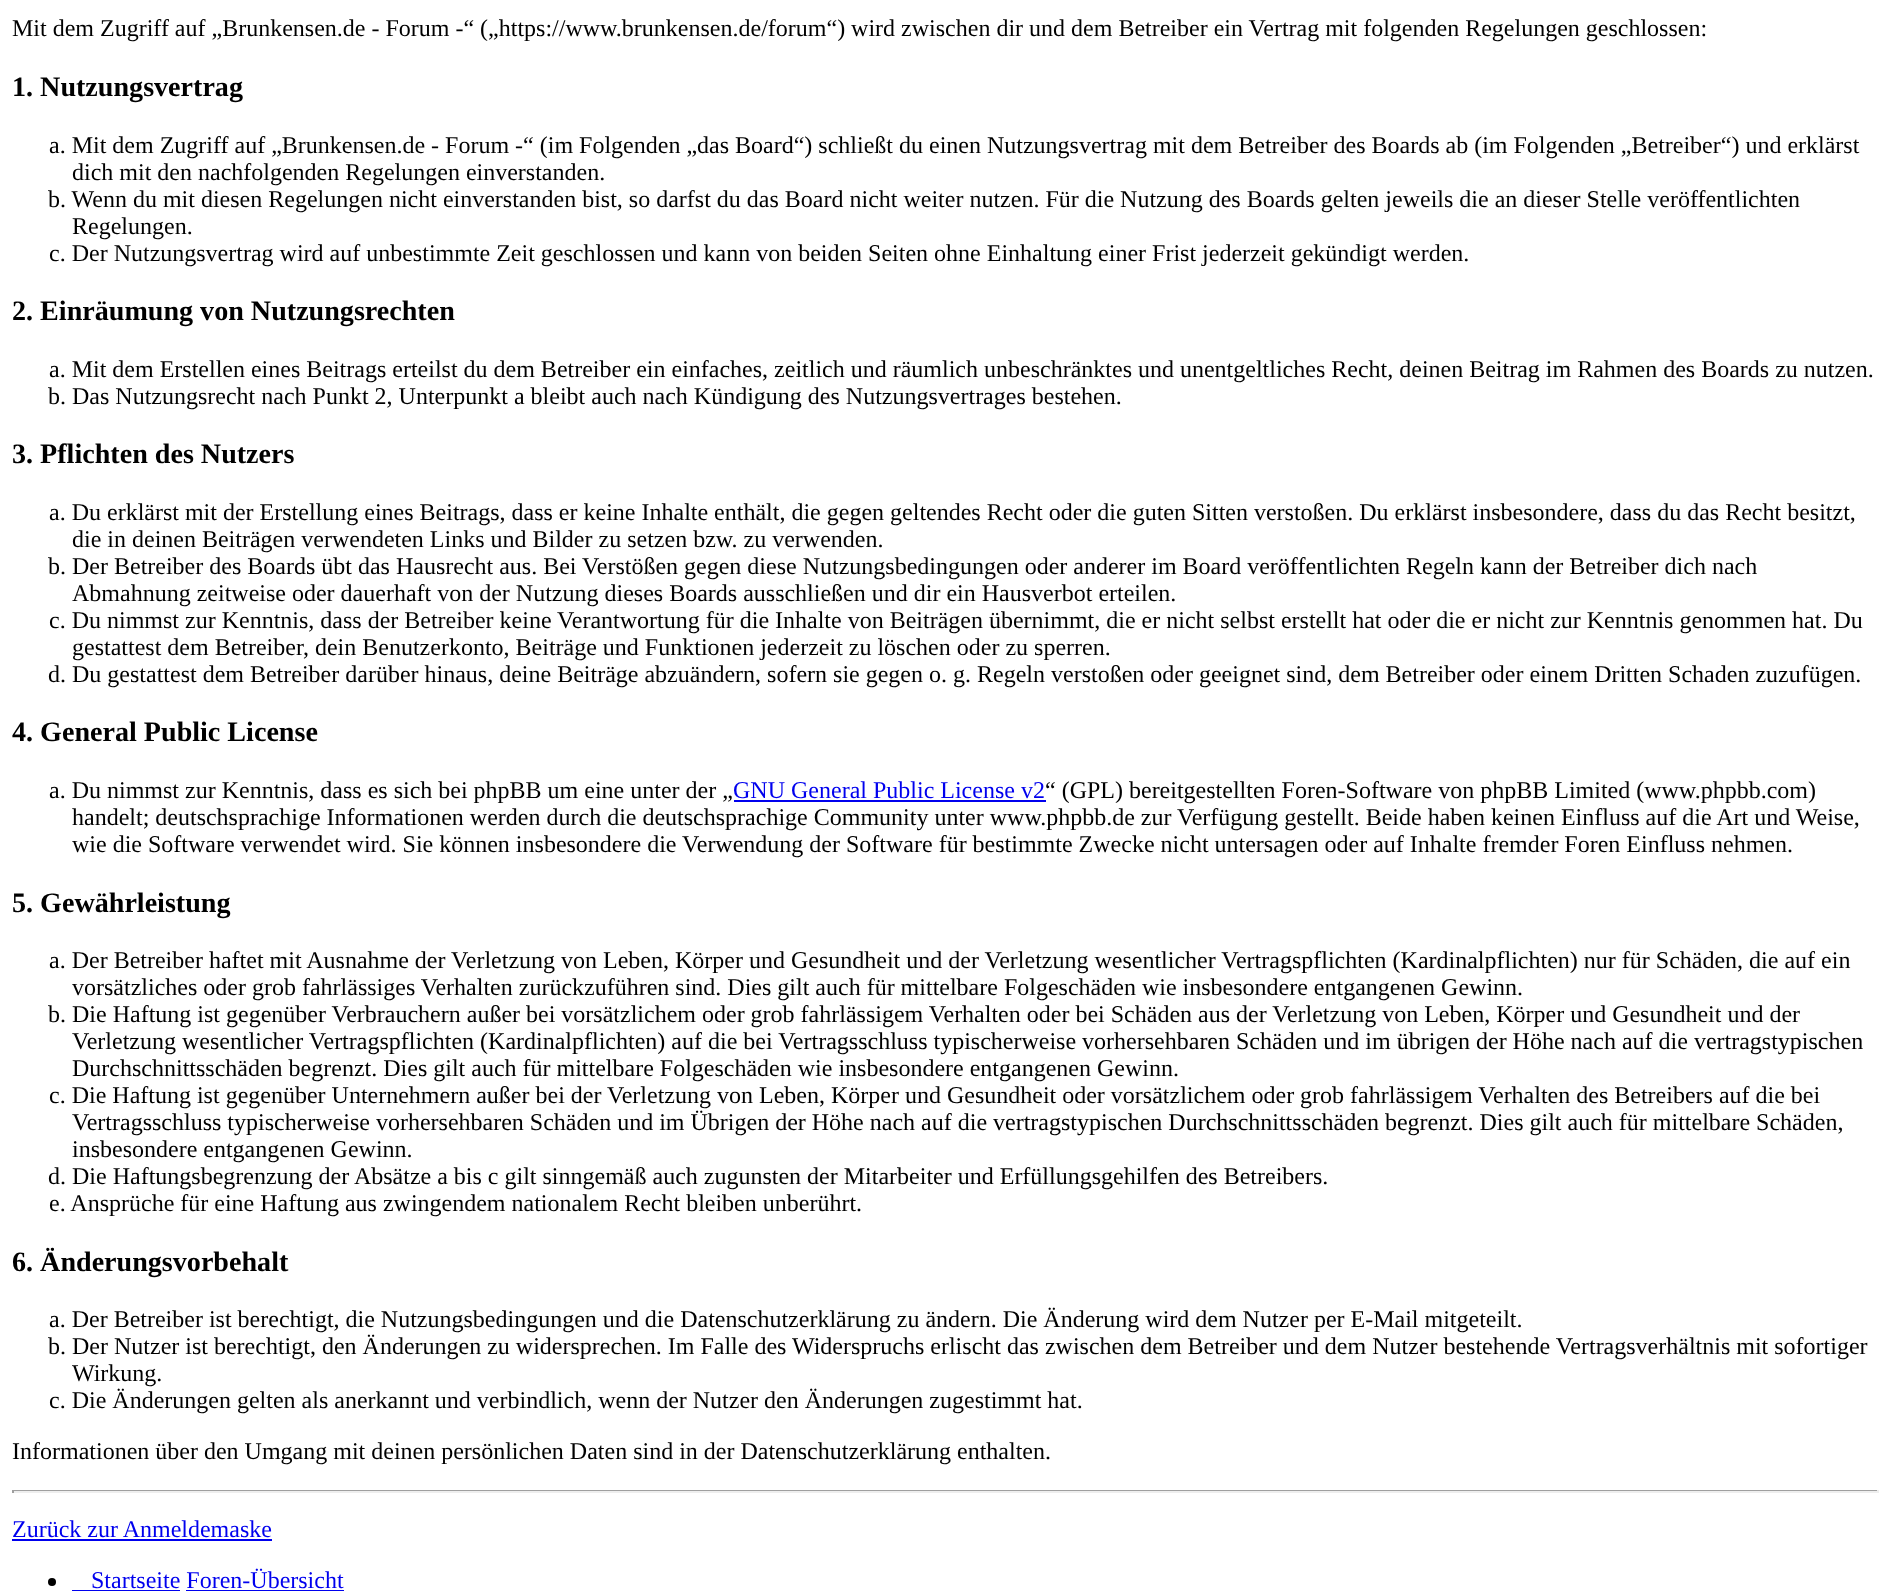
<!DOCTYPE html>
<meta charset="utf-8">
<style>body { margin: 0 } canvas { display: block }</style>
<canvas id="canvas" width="1890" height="1591"></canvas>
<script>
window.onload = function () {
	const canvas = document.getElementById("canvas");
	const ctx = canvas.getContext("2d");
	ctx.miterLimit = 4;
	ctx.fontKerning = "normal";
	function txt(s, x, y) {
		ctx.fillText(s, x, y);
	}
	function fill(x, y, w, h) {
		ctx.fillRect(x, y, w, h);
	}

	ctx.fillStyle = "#FFFFFF";
	fill(0, 0, 1890, 1591);
	ctx.fillStyle = "#0000EE";
	fill(734, 800, 312, 2);
	ctx.fillStyle = "#9F9F9F";
	fill(12, 1490, 1866, 1);
	ctx.fillStyle = "#EEEEEE";
	fill(1877, 1490, 2, 3);
	fill(12, 1491, 1866, 2);
	ctx.fillStyle = "#9F9F9F";
	fill(12, 1490, 2, 3);
	ctx.fillStyle = "#0000EE";
	fill(12, 1539, 260, 2);
	ctx.fillStyle = "#000000";
	ctx.beginPath();
	ctx.arc(52, 1582, 4, 0, Math.PI * 2);
	ctx.fill();
	ctx.fillStyle = "#0000EE";
	fill(72, 1590, 108, 1);
	fill(186, 1590, 158, 1);
	ctx.font = "24px Liberation Serif";
	ctx.fillStyle = "#000000";
	txt("Mit dem Zugriff auf „Brunkensen.de - Forum -“ („https://www.brunkensen.de/forum“) wird zwischen dir und dem Betreiber ein Vertrag mit folgenden Regelungen geschlossen:", 12, 36);
	ctx.font = "bold 28.1px Liberation Serif";
	txt("1. Nutzungsvertrag", 12, 96);
	ctx.font = "24px Liberation Serif";
	txt("a. Mit dem Zugriff auf „Brunkensen.de - Forum -“ (im Folgenden „das Board“) schließt du einen Nutzungsvertrag mit dem Betreiber des Boards ab (im Folgenden „Betreiber“) und erklärst", 49, 153);
	txt("dich mit den nachfolgenden Regelungen einverstanden.", 72, 180);
	txt("b. Wenn du mit diesen Regelungen nicht einverstanden bist, so darfst du das Board nicht weiter nutzen. Für die Nutzung des Boards gelten jeweils die an dieser Stelle veröffentlichten", 48, 207);
	txt("Regelungen.", 72, 234);
	txt("c. Der Nutzungsvertrag wird auf unbestimmte Zeit geschlossen und kann von beiden Seiten ohne Einhaltung einer Frist jederzeit gekündigt werden.", 49, 261);
	ctx.font = "bold 28.1px Liberation Serif";
	txt("2. Einräumung von Nutzungsrechten", 12, 320);
	ctx.font = "24px Liberation Serif";
	txt("a. Mit dem Erstellen eines Beitrags erteilst du dem Betreiber ein einfaches, zeitlich und räumlich unbeschränktes und unentgeltliches Recht, deinen Beitrag im Rahmen des Boards zu nutzen.", 49, 377);
	txt("b. Das Nutzungsrecht nach Punkt 2, Unterpunkt a bleibt auch nach Kündigung des Nutzungsvertrages bestehen.", 48, 404);
	ctx.font = "bold 28.1px Liberation Serif";
	txt("3. Pflichten des Nutzers", 12, 463);
	ctx.font = "24px Liberation Serif";
	txt("a. Du erklärst mit der Erstellung eines Beitrags, dass er keine Inhalte enthält, die gegen geltendes Recht oder die guten Sitten verstoßen. Du erklärst insbesondere, dass du das Recht besitzt,", 49, 520);
	txt("die in deinen Beiträgen verwendeten Links und Bilder zu setzen bzw. zu verwenden.", 72, 547);
	txt("b. Der Betreiber des Boards übt das Hausrecht aus. Bei Verstößen gegen diese Nutzungsbedingungen oder anderer im Board veröffentlichten Regeln kann der Betreiber dich nach", 48, 574);
	txt("Abmahnung zeitweise oder dauerhaft von der Nutzung dieses Boards ausschließen und dir ein Hausverbot erteilen.", 72, 601);
	txt("c. Du nimmst zur Kenntnis, dass der Betreiber keine Verantwortung für die Inhalte von Beiträgen übernimmt, die er nicht selbst erstellt hat oder die er nicht zur Kenntnis genommen hat. Du", 49, 628);
	txt("gestattest dem Betreiber, dein Benutzerkonto, Beiträge und Funktionen jederzeit zu löschen oder zu sperren.", 72, 655);
	txt("d. Du gestattest dem Betreiber darüber hinaus, deine Beiträge abzuändern, sofern sie gegen o. g. Regeln verstoßen oder geeignet sind, dem Betreiber oder einem Dritten Schaden zuzufügen.", 48, 682);
	ctx.font = "bold 28.1px Liberation Serif";
	txt("4. General Public License", 12, 741);
	ctx.font = "24px Liberation Serif";
	txt("a. Du nimmst zur Kenntnis, dass es sich bei phpBB um eine unter der „", 49, 798);
	ctx.fillStyle = "#0000EE";
	txt("GNU General Public License v2", 733, 798);
	ctx.fillStyle = "#000000";
	txt("“ (GPL) bereitgestellten Foren-Software von phpBB Limited (www.phpbb.com)", 1045, 798);
	txt("handelt; deutschsprachige Informationen werden durch die deutschsprachige Community unter www.phpbb.de zur Verfügung gestellt. Beide haben keinen Einfluss auf die Art und Weise,", 72, 825);
	txt("wie die Software verwendet wird. Sie können insbesondere die Verwendung der Software für bestimmte Zwecke nicht untersagen oder auf Inhalte fremder Foren Einfluss nehmen.", 72, 852);
	ctx.font = "bold 28.1px Liberation Serif";
	txt("5. Gewährleistung", 12, 912);
	ctx.font = "24px Liberation Serif";
	txt("a. Der Betreiber haftet mit Ausnahme der Verletzung von Leben, Körper und Gesundheit und der Verletzung wesentlicher Vertragspflichten (Kardinalpflichten) nur für Schäden, die auf ein", 49, 968);
	txt("vorsätzliches oder grob fahrlässiges Verhalten zurückzuführen sind. Dies gilt auch für mittelbare Folgeschäden wie insbesondere entgangenen Gewinn.", 72, 995);
	txt("b. Die Haftung ist gegenüber Verbrauchern außer bei vorsätzlichem oder grob fahrlässigem Verhalten oder bei Schäden aus der Verletzung von Leben, Körper und Gesundheit und der", 48, 1022);
	txt("Verletzung wesentlicher Vertragspflichten (Kardinalpflichten) auf die bei Vertragsschluss typischerweise vorhersehbaren Schäden und im übrigen der Höhe nach auf die vertragstypischen", 72, 1049);
	txt("Durchschnittsschäden begrenzt. Dies gilt auch für mittelbare Folgeschäden wie insbesondere entgangenen Gewinn.", 72, 1076);
	txt("c. Die Haftung ist gegenüber Unternehmern außer bei der Verletzung von Leben, Körper und Gesundheit oder vorsätzlichem oder grob fahrlässigem Verhalten des Betreibers auf die bei", 49, 1103);
	txt("Vertragsschluss typischerweise vorhersehbaren Schäden und im Übrigen der Höhe nach auf die vertragstypischen Durchschnittsschäden begrenzt. Dies gilt auch für mittelbare Schäden,", 72, 1130);
	txt("insbesondere entgangenen Gewinn.", 72, 1157);
	txt("d. Die Haftungsbegrenzung der Absätze a bis c gilt sinngemäß auch zugunsten der Mitarbeiter und Erfüllungsgehilfen des Betreibers.", 48, 1184);
	txt("e. Ansprüche für eine Haftung aus zwingendem nationalem Recht bleiben unberührt.", 49, 1211);
	ctx.font = "bold 28.1px Liberation Serif";
	txt("6. Änderungsvorbehalt", 12, 1271);
	ctx.font = "24px Liberation Serif";
	txt("a. Der Betreiber ist berechtigt, die Nutzungsbedingungen und die Datenschutzerklärung zu ändern. Die Änderung wird dem Nutzer per E-Mail mitgeteilt.", 49, 1327);
	txt("b. Der Nutzer ist berechtigt, den Änderungen zu widersprechen. Im Falle des Widerspruchs erlischt das zwischen dem Betreiber und dem Nutzer bestehende Vertragsverhältnis mit sofortiger", 48, 1354);
	txt("Wirkung.", 72, 1381);
	txt("c. Die Änderungen gelten als anerkannt und verbindlich, wenn der Nutzer den Änderungen zugestimmt hat.", 49, 1408);
	txt("Informationen über den Umgang mit deinen persönlichen Daten sind in der Datenschutzerklärung enthalten.", 12, 1459);
	ctx.fillStyle = "#0000EE";
	txt("Zurück zur Anmeldemaske", 12, 1537);
	txt("Startseite Foren-Übersicht", 91, 1588);
};
</script>
